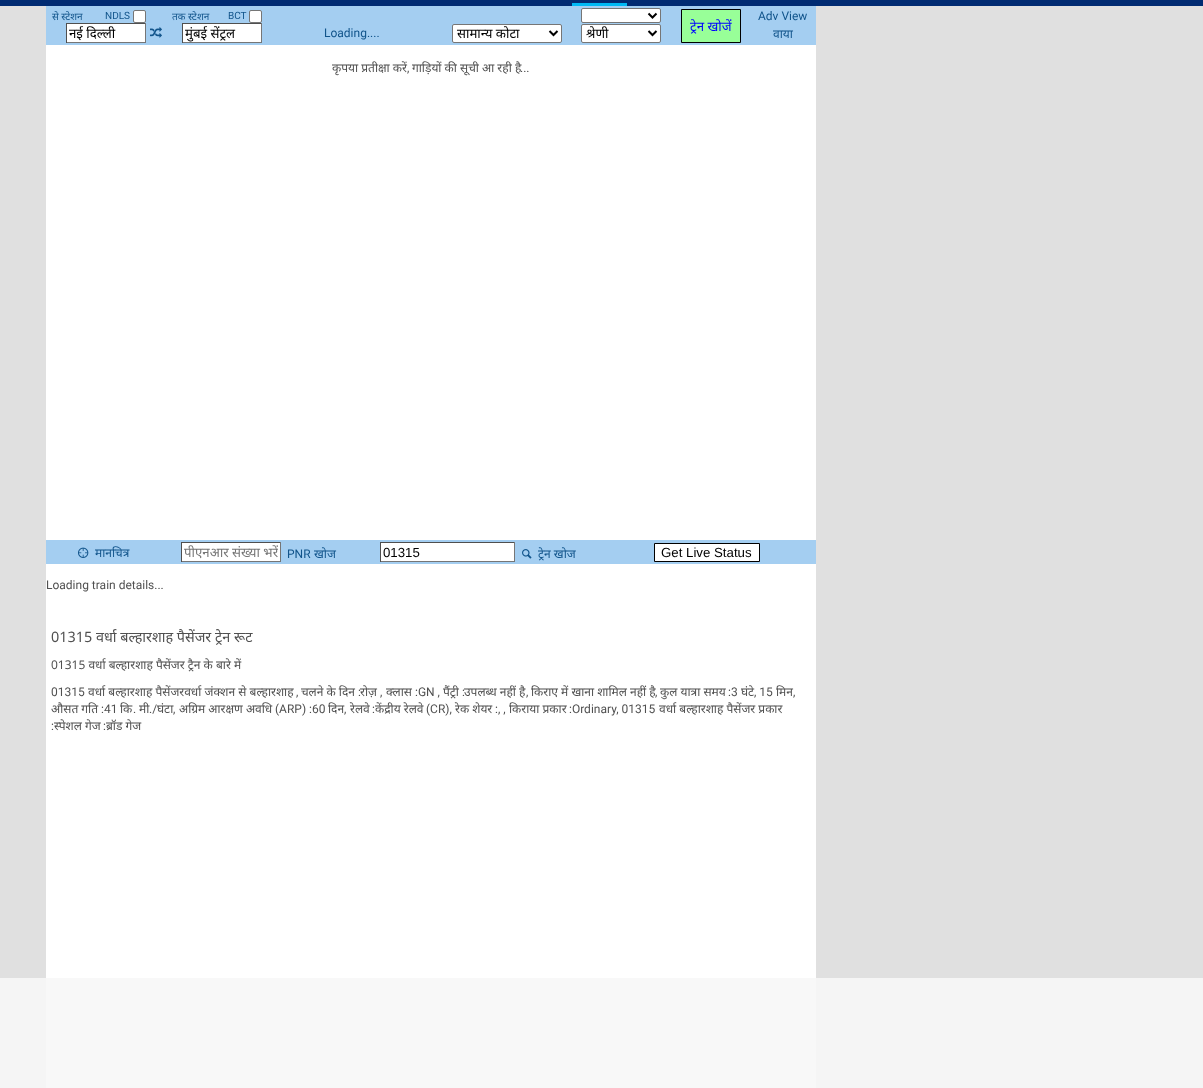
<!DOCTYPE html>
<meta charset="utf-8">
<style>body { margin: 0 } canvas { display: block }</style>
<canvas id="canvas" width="1203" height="1088"></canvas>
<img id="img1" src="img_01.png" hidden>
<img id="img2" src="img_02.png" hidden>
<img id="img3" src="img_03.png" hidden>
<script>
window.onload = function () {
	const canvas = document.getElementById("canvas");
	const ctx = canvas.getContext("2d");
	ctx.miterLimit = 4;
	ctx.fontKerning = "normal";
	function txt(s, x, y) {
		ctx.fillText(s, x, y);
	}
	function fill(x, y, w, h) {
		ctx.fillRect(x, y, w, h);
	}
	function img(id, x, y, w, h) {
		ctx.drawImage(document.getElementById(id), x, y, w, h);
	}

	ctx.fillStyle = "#E0E0E0";
	fill(0, 0, 1203, 1088);
	ctx.fillStyle = "#F5F5F5";
	fill(0, 978, 1203, 110);
	ctx.fillStyle = "#012B72";
	fill(0, 0, 1203, 6);
	ctx.fillStyle = "#00B9F5";
	fill(572, 3, 55, 3);
	ctx.fillStyle = "#FFFFFF";
	fill(46, 45, 770, 933);
	ctx.fillStyle = "#F8F8F8";
	fill(46, 978, 770, 110);
	ctx.fillStyle = "#A4CEF1";
	fill(46, 6, 770, 39);
	ctx.fillStyle = "#FFFFFF";
	ctx.beginPath();
	ctx.roundRect(133.5, 10.5, 12, 12, 1.5);
	ctx.fill();
	ctx.strokeStyle = "#767676";
	ctx.stroke();
	ctx.beginPath();
	ctx.roundRect(249.5, 10.5, 12, 12, 1.5);
	ctx.fill();
	ctx.stroke();
	ctx.beginPath();
	ctx.roundRect(581.5, 8.5, 79, 14, 1.5);
	ctx.fill();
	ctx.stroke();
	ctx.beginPath();
	ctx.moveTo(648.5, 13.5);
	ctx.lineTo(652.5, 17.5);
	ctx.lineTo(656.5, 13.5);
	ctx.strokeStyle = "#000000";
	ctx.lineWidth = 2;
	ctx.stroke();
	ctx.fillStyle = "#98FF98";
	ctx.beginPath();
	ctx.rect(681.5, 9.5, 59, 33);
	ctx.fill();
	ctx.lineWidth = 1;
	ctx.stroke();
	ctx.fillStyle = "#FFFFFF";
	fill(67, 24, 78, 18);
	ctx.fillStyle = "#4F4F4F";
	fill(66, 23, 80, 1);
	ctx.fillStyle = "#767676";
	fill(145, 23, 1, 20);
	fill(66, 42, 80, 1);
	ctx.fillStyle = "#4F4F4F";
	fill(66, 23, 1, 20);
	img("img1", 150, 27, 12, 11);
	ctx.fillStyle = "#FFFFFF";
	fill(183, 24, 78, 18);
	ctx.fillStyle = "#4F4F4F";
	fill(182, 23, 80, 1);
	ctx.fillStyle = "#767676";
	fill(261, 23, 1, 20);
	fill(182, 42, 80, 1);
	ctx.fillStyle = "#4F4F4F";
	fill(182, 23, 1, 20);
	ctx.fillStyle = "#FFFFFF";
	ctx.beginPath();
	ctx.roundRect(452.5, 24.5, 109, 18, 1.5);
	ctx.fill();
	ctx.strokeStyle = "#767676";
	ctx.stroke();
	ctx.beginPath();
	ctx.moveTo(549.5, 31);
	ctx.lineTo(553.5, 35);
	ctx.lineTo(557.5, 31);
	ctx.strokeStyle = "#000000";
	ctx.lineWidth = 2;
	ctx.stroke();
	ctx.beginPath();
	ctx.roundRect(581.5, 24.5, 79, 18, 1.5);
	ctx.fill();
	ctx.strokeStyle = "#767676";
	ctx.lineWidth = 1;
	ctx.stroke();
	ctx.beginPath();
	ctx.moveTo(648.5, 31);
	ctx.lineTo(652.5, 35);
	ctx.lineTo(656.5, 31);
	ctx.strokeStyle = "#000000";
	ctx.lineWidth = 2;
	ctx.stroke();
	ctx.fillStyle = "#A4CEF1";
	fill(46, 540, 770, 24);
	img("img2", 78, 547, 11, 11);
	ctx.fillStyle = "#FFFFFF";
	fill(182, 543, 98, 18);
	ctx.fillStyle = "#4F4F4F";
	fill(181, 542, 100, 1);
	ctx.fillStyle = "#767676";
	fill(280, 542, 1, 20);
	fill(181, 561, 100, 1);
	ctx.fillStyle = "#4F4F4F";
	fill(181, 542, 1, 20);
	ctx.fillStyle = "#FFFFFF";
	fill(381, 543, 133, 18);
	ctx.fillStyle = "#4F4F4F";
	fill(380, 542, 135, 1);
	ctx.fillStyle = "#767676";
	fill(514, 542, 1, 20);
	fill(380, 561, 135, 1);
	ctx.fillStyle = "#4F4F4F";
	fill(380, 542, 1, 20);
	img("img3", 522, 549, 10, 10);
	ctx.fillStyle = "#FFFFFF";
	ctx.beginPath();
	ctx.rect(654.5, 543.5, 105, 18);
	ctx.fill();
	ctx.lineWidth = 1;
	ctx.stroke();
	ctx.font = "10px Noto Sans";
	ctx.fillStyle = "#11548B";
	txt("से स्टेशन", 52, 20);
	ctx.font = "10px Roboto";
	txt("NDLS", 105, 19);
	ctx.font = "10px Noto Sans";
	txt("तक स्टेशन", 172, 20);
	ctx.font = "10px Roboto";
	txt("BCT", 228, 19);
	ctx.font = "12px Roboto";
	txt("Adv View", 758, 20);
	ctx.font = "13.25px Noto Sans";
	ctx.fillStyle = "#0000FF";
	txt("ट्रेन खोजें", 690, 31);
	ctx.fillStyle = "#000000";
	txt("नई दिल्ली", 69, 38);
	ctx.save();
	ctx.beginPath();
	ctx.rect(185, 24, 74, 18);
	ctx.clip();
	txt("मुंबई सेंट्रल", 185, 38);
	ctx.restore();
	ctx.font = "12px Roboto";
	ctx.fillStyle = "#11548B";
	txt("Loading....", 324, 37);
	ctx.font = "13.25px Noto Sans";
	ctx.fillStyle = "#000000";
	txt("सामान्य कोटा", 457, 38);
	ctx.save();
	ctx.beginPath();
	ctx.rect(586, 25, 58, 17);
	ctx.clip();
	txt("श्रेणी", 586, 38);
	ctx.restore();
	ctx.font = "12px Noto Sans";
	ctx.fillStyle = "#11548B";
	txt("वाया", 773, 38);
	ctx.fillStyle = "#505050";
	txt("कृपया प्रतीक्षा करें", 332, 72);
	ctx.font = "12px Roboto";
	txt(",", 407, 72);
	ctx.font = "12px Noto Sans";
	txt("गाड़ियों की सूची आ रही है", 412, 72);
	ctx.font = "12px Roboto";
	txt("...", 520, 72);
	ctx.font = "12px Noto Sans";
	ctx.fillStyle = "#11548B";
	txt("मानचित्र", 95, 557);
	ctx.save();
	ctx.beginPath();
	ctx.rect(184, 543, 94, 18);
	ctx.clip();
	ctx.font = "13.25px Noto Sans";
	ctx.fillStyle = "#757575";
	txt("पीएनआर संख्या भरें", 184, 557);
	ctx.restore();
	ctx.font = "12px Roboto";
	txt("PNR", 287, 558);
	ctx.font = "12px Noto Sans";
	txt("खोज", 314, 558);
	ctx.font = "13.25px Liberation Sans";
	ctx.fillStyle = "#000000";
	txt("01315", 383, 557);
	ctx.font = "12px Noto Sans";
	ctx.fillStyle = "#11548B";
	txt("ट्रेन खोज", 538, 558);
	ctx.font = "13.25px Liberation Sans";
	ctx.fillStyle = "#000000";
	txt("Get Live Status", 661, 557);
	ctx.font = "12px Roboto";
	ctx.fillStyle = "#505050";
	txt("Loading train details...", 46, 589);
	ctx.font = "14.4px Noto Sans";
	txt("01315 वर्धा बल्हारशाह पैसेंजर ट्रेन रूट", 51, 642);
	ctx.font = "12px Noto Sans";
	txt("01315 वर्धा बल्हारशाह पैसेंजर ट्रैन के बारे में", 51, 669);
	ctx.font = "12px Roboto";
	txt("01315", 51, 696);
	ctx.font = "12px Noto Sans";
	txt("वर्धा बल्हारशाह पैसेंजरवर्धा जंक्शन से बल्हारशाह", 88, 696);
	txt("चलने के दिन", 301, 696);
	txt("क्लास", 386, 696);
	ctx.font = "12px Roboto";
	txt(":GN ,", 415, 696);
	ctx.font = "12px Noto Sans";
	txt("पैंट्री", 443, 696);
	txt("उपलब्ध नहीं है", 464, 696);
	txt("किराए में खाना शामिल नहीं है", 531, 696);
	ctx.font = "12px Roboto";
	txt(":3", 728, 696);
	ctx.font = "12px Noto Sans";
	txt("घंटे", 741, 696);
	ctx.font = "12px Roboto";
	txt(", 15", 754, 696);
	ctx.font = "12px Noto Sans";
	txt("मिन", 776, 696);
	ctx.font = "12px Roboto";
	txt(",", 296, 696);
	txt(":", 358, 696);
	ctx.font = "12px Noto Sans";
	txt("रोज़", 360, 696);
	ctx.font = "12px Roboto";
	txt(",", 380, 696);
	txt(":", 462, 696);
	txt(",", 526, 696);
	txt(",", 655, 696);
	ctx.font = "12px Noto Sans";
	txt("कुल यात्रा समय", 660, 696);
	ctx.font = "12px Roboto";
	txt(",", 793, 696);
	ctx.font = "12px Noto Sans";
	txt("औसत गति", 51, 713);
	ctx.font = "12px Roboto";
	txt(":41", 101, 713);
	ctx.font = "12px Noto Sans";
	txt("कि", 120, 713);
	txt("मी", 139, 713);
	ctx.font = "12px Roboto";
	txt("./", 149, 713);
	ctx.font = "12px Noto Sans";
	txt("घंटा", 157, 713);
	txt("अग्रिम आरक्षण अवधि", 179, 713);
	ctx.font = "12px Roboto";
	txt("(ARP) :60", 275, 713);
	ctx.font = "12px Noto Sans";
	txt("दिन", 328, 713);
	ctx.font = "12px Roboto";
	txt("(CR),", 426, 713);
	ctx.font = "12px Noto Sans";
	txt("रेक शेयर", 455, 713);
	txt("किराया प्रकार", 509, 713);
	ctx.font = "12px Roboto";
	txt(":Ordinary, 01315", 569, 713);
	ctx.font = "12px Noto Sans";
	txt("वर्धा बल्हारशाह पैसेंजर प्रकार", 659, 713);
	ctx.font = "12px Roboto";
	txt(".", 133, 713);
	txt(",", 173, 713);
	txt(",", 344, 713);
	ctx.font = "12px Noto Sans";
	txt("रेलवे", 350, 713);
	ctx.font = "12px Roboto";
	txt(":", 372, 713);
	ctx.font = "12px Noto Sans";
	txt("केंद्रीय रेलवे", 375, 713);
	ctx.font = "12px Roboto";
	txt(":, ,", 495, 713);
	txt(":", 51, 730);
	ctx.font = "12px Noto Sans";
	txt("स्पेशल गेज", 54, 730);
	ctx.font = "12px Roboto";
	txt(":", 103, 730);
	ctx.font = "12px Noto Sans";
	txt("ब्रॉड गेज", 106, 730);
};
</script>
